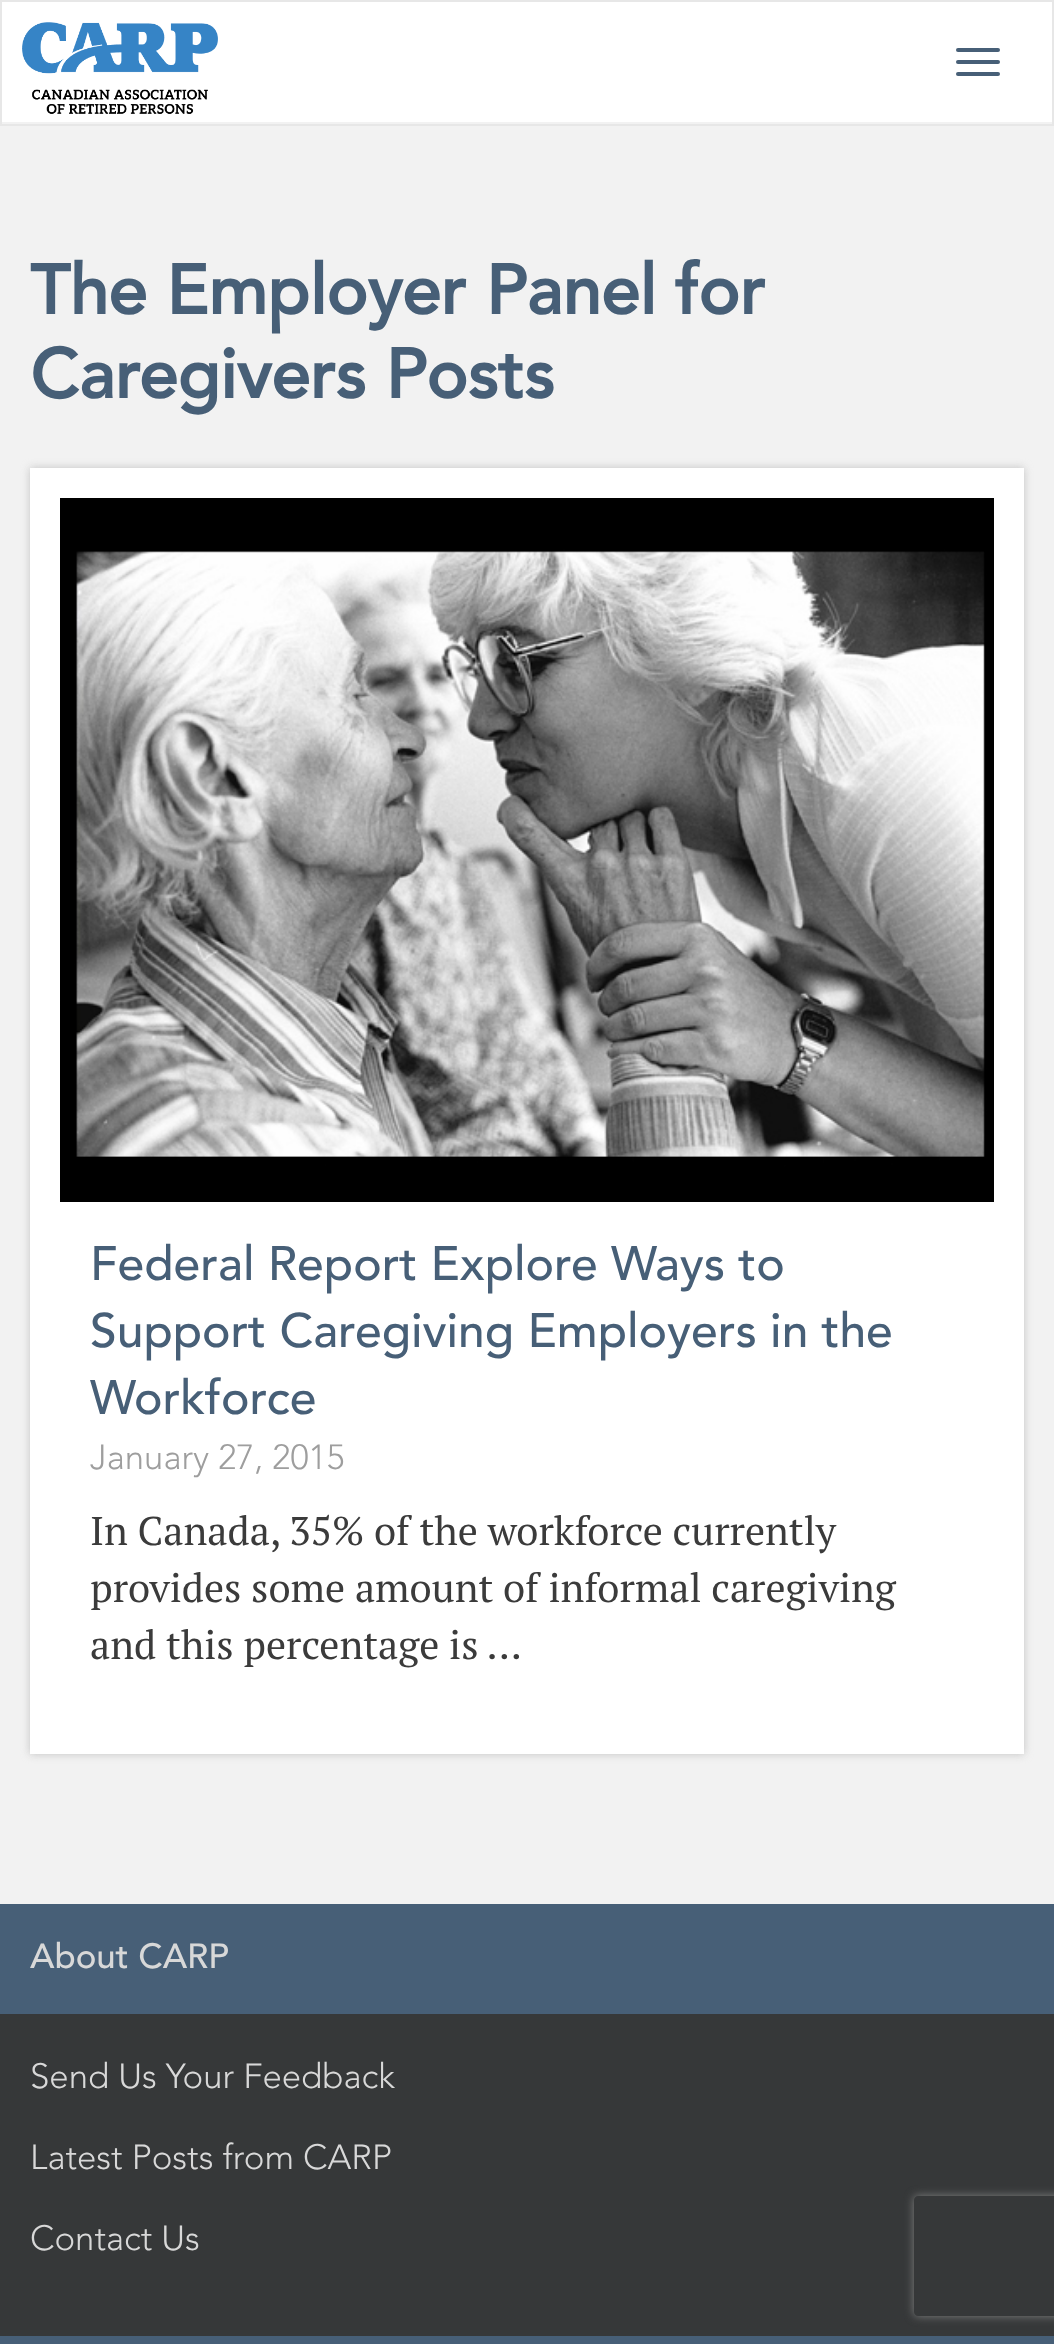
<!DOCTYPE html>
<meta charset="utf-8">
<style>body { margin: 0 } canvas { display: block }</style>
<canvas id="canvas" width="1054" height="2344"></canvas>
<img id="img1" src="img_01.png" hidden>
<img id="img2" src="img_02.png" hidden>
<script>
window.onload = function () {
	const canvas = document.getElementById("canvas");
	const ctx = canvas.getContext("2d");
	ctx.miterLimit = 4;
	ctx.fontKerning = "normal";
	function txt(s, x, y) {
		ctx.fillText(s, x, y);
	}
	function fill(x, y, w, h) {
		ctx.fillRect(x, y, w, h);
	}
	function round(x, y, w, h, r) {
		ctx.beginPath();
		ctx.roundRect(x, y, w, h, r);
		ctx.fill();
	}
	function img(id, x, y, w, h) {
		ctx.drawImage(document.getElementById(id), x, y, w, h);
	}

	ctx.fillStyle = "#F2F2F2";
	fill(0, 0, 1054, 2344);
	ctx.fillStyle = "#FFFFFF";
	fill(2, 2, 1050, 120);
	ctx.strokeStyle = "#E7E7E7";
	ctx.lineWidth = 2;
	ctx.strokeRect(1, 1, 1052, 124);
	img("img1", 22, 22, 196, 92);
	ctx.fillStyle = "#475F77";
	round(956, 48, 44, 4, 2);
	round(956, 60, 44, 4, 2);
	round(956, 72, 44, 4, 2);
	ctx.fillStyle = "#C1C1C1";
	ctx.filter = "blur(4px)";
	ctx.beginPath();
	ctx.rect(30, 468, 994, 1286);
	ctx.fill();
	ctx.filter = "none";
	ctx.fillStyle = "#FFFFFF";
	fill(30, 468, 994, 1286);
	img("img2", 60, 498, 934, 704);
	ctx.fillStyle = "#475F77";
	fill(0, 1904, 1054, 110);
	ctx.fillStyle = "#363839";
	fill(0, 2014, 1054, 322);
	ctx.fillStyle = "#475F77";
	fill(0, 2336, 1054, 8);
	ctx.save();
	ctx.beginPath();
	ctx.moveTo(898, 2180);
	ctx.lineTo(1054, 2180);
	ctx.lineTo(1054, 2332);
	ctx.lineTo(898, 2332);
	ctx.closePath();
	ctx.moveTo(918, 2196);
	ctx.lineTo(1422, 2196);
	ctx.bezierCurveTo(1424, 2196, 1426, 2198, 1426, 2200);
	ctx.lineTo(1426, 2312);
	ctx.bezierCurveTo(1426, 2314, 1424, 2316, 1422, 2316);
	ctx.lineTo(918, 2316);
	ctx.bezierCurveTo(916, 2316, 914, 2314, 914, 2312);
	ctx.lineTo(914, 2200);
	ctx.bezierCurveTo(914, 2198, 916, 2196, 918, 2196);
	ctx.closePath();
	ctx.clip("evenodd");
	ctx.fillStyle = "#808080";
	ctx.filter = "blur(5px)";
	ctx.beginPath();
	ctx.roundRect(914, 2196, 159, 120, 4);
	ctx.fill();
	ctx.filter = "none";
	ctx.restore();
	ctx.font = "bold 69.25px Avenir";
	txt("The Employer Panel for", 30, 314);
	txt("Caregivers Posts", 30, 398);
	ctx.font = "500 48px Avenir";
	txt("Federal Report Explore Ways to", 90, 1280);
	txt("Support Caregiving Employers in the", 90, 1347);
	txt("Workforce", 90, 1414);
	ctx.font = "300 34.75px Avenir";
	ctx.fillStyle = "#9E9E9E";
	txt("January 27, 2015", 90, 1469);
	ctx.font = "40px PT Serif";
	ctx.fillStyle = "#3B3B3B";
	txt("In Canada, 35% of the workforce currently", 90, 1545);
	txt("provides some amount of informal caregiving", 90, 1602);
	txt("and this percentage is ...", 90, 1659);
	ctx.font = "500 34.75px Avenir";
	ctx.fillStyle = "#D8D8D8";
	txt("About CARP", 30, 1968);
	ctx.font = "300 34.75px Avenir";
	txt("Send Us Your Feedback", 30, 2088);
	txt("Latest Posts from CARP", 30, 2169);
	txt("Contact Us", 30, 2250);
};
</script>
